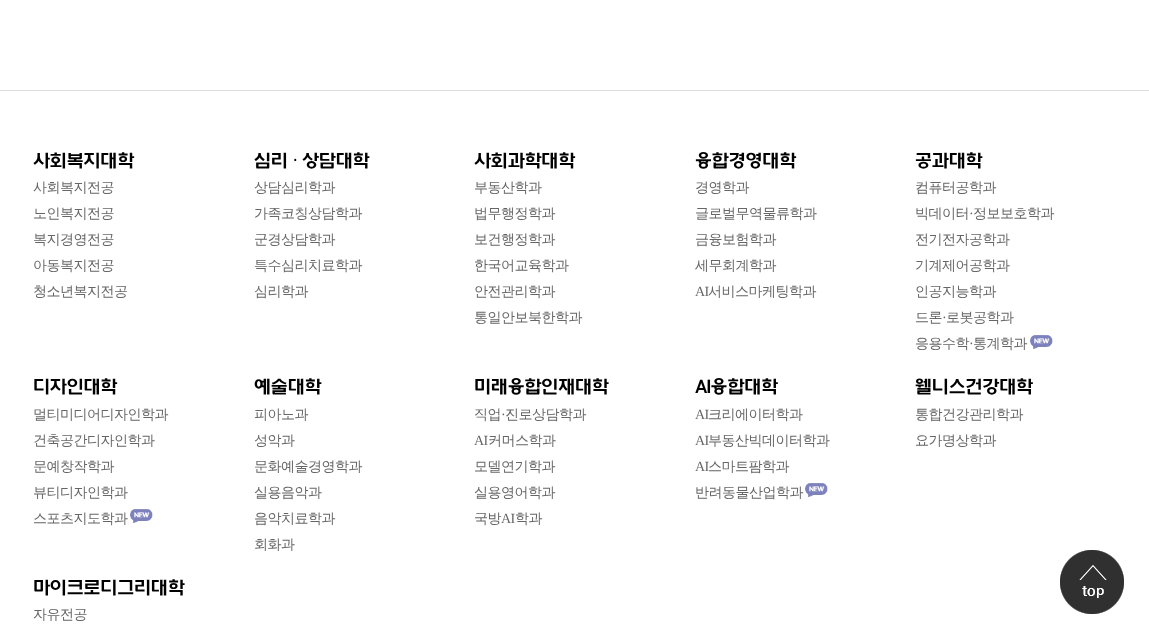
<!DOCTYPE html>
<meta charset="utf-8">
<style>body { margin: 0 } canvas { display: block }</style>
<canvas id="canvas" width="1149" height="634"></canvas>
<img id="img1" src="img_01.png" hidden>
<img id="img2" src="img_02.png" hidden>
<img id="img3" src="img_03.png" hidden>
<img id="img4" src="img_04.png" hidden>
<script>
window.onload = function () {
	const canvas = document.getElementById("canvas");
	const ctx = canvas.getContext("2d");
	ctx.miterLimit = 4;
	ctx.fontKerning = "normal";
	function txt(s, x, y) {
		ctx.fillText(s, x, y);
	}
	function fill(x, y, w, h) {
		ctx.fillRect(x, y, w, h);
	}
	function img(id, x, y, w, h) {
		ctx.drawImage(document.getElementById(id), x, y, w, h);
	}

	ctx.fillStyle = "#FFFFFF";
	fill(0, 0, 1149, 634);
	ctx.fillStyle = "#DDDDDD";
	fill(0, 90, 1149, 1);
	img("img1", 1030, 335, 23, 14);
	img("img2", 130, 509, 23, 14);
	img("img1", 805, 483, 23, 14);
	img("img3", 1060, 550, 64, 64);
	img("img4", 1060, 550, 64, 64);
	ctx.letterSpacing = "-0.75px";
	ctx.font = "bold 18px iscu";
	ctx.fillStyle = "#000000";
	txt("사회복지대학", 33, 167);
	ctx.letterSpacing = "-0.5px";
	ctx.font = "500 14px WenQuanYi Zen Hei";
	ctx.fillStyle = "#666666";
	txt("사회복지전공", 33, 192);
	txt("노인복지전공", 33, 218);
	txt("복지경영전공", 33, 244);
	txt("아동복지전공", 33, 270);
	txt("청소년복지전공", 33, 296);
	ctx.letterSpacing = "-0.75px";
	ctx.font = "bold 18px iscu";
	ctx.fillStyle = "#000000";
	txt("심리·상담대학", 254, 167);
	ctx.letterSpacing = "-0.5px";
	ctx.font = "500 14px WenQuanYi Zen Hei";
	ctx.fillStyle = "#666666";
	txt("상담심리학과", 254, 192);
	txt("가족코칭상담학과", 254, 218);
	txt("군경상담학과", 254, 244);
	txt("특수심리치료학과", 254, 270);
	txt("심리학과", 254, 296);
	ctx.letterSpacing = "-0.75px";
	ctx.font = "bold 18px iscu";
	ctx.fillStyle = "#000000";
	txt("사회과학대학", 474, 167);
	ctx.letterSpacing = "-0.5px";
	ctx.font = "500 14px WenQuanYi Zen Hei";
	ctx.fillStyle = "#666666";
	txt("부동산학과", 474, 192);
	txt("법무행정학과", 474, 218);
	txt("보건행정학과", 474, 244);
	txt("한국어교육학과", 474, 270);
	txt("안전관리학과", 474, 296);
	txt("통일안보북한학과", 474, 322);
	ctx.letterSpacing = "-0.75px";
	ctx.font = "bold 18px iscu";
	ctx.fillStyle = "#000000";
	txt("융합경영대학", 695, 167);
	ctx.letterSpacing = "-0.5px";
	ctx.font = "500 14px WenQuanYi Zen Hei";
	ctx.fillStyle = "#666666";
	txt("경영학과", 695, 192);
	txt("글로벌무역물류학과", 695, 218);
	txt("금융보험학과", 695, 244);
	txt("세무회계학과", 695, 270);
	ctx.font = "14px Liberation Serif";
	txt("AI", 695, 296);
	ctx.font = "500 14px WenQuanYi Zen Hei";
	txt("서비스마케팅학과", 708, 296);
	ctx.letterSpacing = "-0.75px";
	ctx.font = "bold 18px iscu";
	ctx.fillStyle = "#000000";
	txt("공과대학", 915, 167);
	ctx.letterSpacing = "-0.5px";
	ctx.font = "500 14px WenQuanYi Zen Hei";
	ctx.fillStyle = "#666666";
	txt("컴퓨터공학과", 915, 192);
	txt("빅데이터", 915, 218);
	ctx.font = "14px Liberation Serif";
	txt("·", 969, 218);
	ctx.font = "500 14px WenQuanYi Zen Hei";
	txt("정보보호학과", 973, 218);
	txt("전기전자공학과", 915, 244);
	txt("기계제어공학과", 915, 270);
	txt("인공지능학과", 915, 296);
	txt("드론", 915, 322);
	ctx.font = "14px Liberation Serif";
	txt("·", 942, 322);
	ctx.font = "500 14px WenQuanYi Zen Hei";
	txt("로봇공학과", 946, 322);
	txt("응용수학", 915, 348);
	ctx.font = "14px Liberation Serif";
	txt("·", 969, 348);
	ctx.font = "500 14px WenQuanYi Zen Hei";
	txt("통계학과", 973, 348);
	ctx.letterSpacing = "-0.75px";
	ctx.font = "bold 18px iscu";
	ctx.fillStyle = "#000000";
	txt("디자인대학", 33, 393);
	ctx.letterSpacing = "-0.5px";
	ctx.font = "500 14px WenQuanYi Zen Hei";
	ctx.fillStyle = "#666666";
	txt("멀티미디어디자인학과", 33, 419);
	txt("건축공간디자인학과", 33, 445);
	txt("문예창작학과", 33, 471);
	txt("뷰티디자인학과", 33, 497);
	txt("스포츠지도학과", 33, 523);
	ctx.letterSpacing = "-0.75px";
	ctx.font = "bold 18px iscu";
	ctx.fillStyle = "#000000";
	txt("예술대학", 254, 393);
	ctx.letterSpacing = "-0.5px";
	ctx.font = "500 14px WenQuanYi Zen Hei";
	ctx.fillStyle = "#666666";
	txt("피아노과", 254, 419);
	txt("성악과", 254, 445);
	txt("문화예술경영학과", 254, 471);
	txt("실용음악과", 254, 497);
	txt("음악치료학과", 254, 523);
	txt("회화과", 254, 549);
	ctx.letterSpacing = "-0.75px";
	ctx.font = "bold 18px iscu";
	ctx.fillStyle = "#000000";
	txt("미래융합인재대학", 474, 393);
	ctx.letterSpacing = "-0.5px";
	ctx.font = "500 14px WenQuanYi Zen Hei";
	ctx.fillStyle = "#666666";
	txt("직업", 474, 419);
	ctx.font = "14px Liberation Serif";
	txt("·", 501, 419);
	ctx.font = "500 14px WenQuanYi Zen Hei";
	txt("진로상담학과", 505, 419);
	ctx.font = "14px Liberation Serif";
	txt("AI", 474, 445);
	ctx.font = "500 14px WenQuanYi Zen Hei";
	txt("커머스학과", 488, 445);
	txt("모델연기학과", 474, 471);
	txt("실용영어학과", 474, 497);
	txt("국방", 474, 523);
	ctx.font = "14px Liberation Serif";
	txt("AI", 501, 523);
	ctx.font = "500 14px WenQuanYi Zen Hei";
	txt("학과", 515, 523);
	ctx.letterSpacing = "-0.75px";
	ctx.font = "bold 18px iscu";
	ctx.fillStyle = "#000000";
	txt("AI융합대학", 695, 393);
	ctx.letterSpacing = "-0.5px";
	ctx.font = "14px Liberation Serif";
	ctx.fillStyle = "#666666";
	txt("AI", 695, 419);
	ctx.font = "500 14px WenQuanYi Zen Hei";
	txt("크리에이터학과", 708, 419);
	ctx.font = "14px Liberation Serif";
	txt("AI", 695, 445);
	ctx.font = "500 14px WenQuanYi Zen Hei";
	txt("부동산빅데이터학과", 708, 445);
	ctx.font = "14px Liberation Serif";
	txt("AI", 695, 471);
	ctx.font = "500 14px WenQuanYi Zen Hei";
	txt("스마트팜학과", 708, 471);
	txt("반려동물산업학과", 695, 497);
	ctx.letterSpacing = "-0.75px";
	ctx.font = "bold 18px iscu";
	ctx.fillStyle = "#000000";
	txt("웰니스건강대학", 915, 393);
	ctx.letterSpacing = "-0.5px";
	ctx.font = "500 14px WenQuanYi Zen Hei";
	ctx.fillStyle = "#666666";
	txt("통합건강관리학과", 915, 419);
	txt("요가명상학과", 915, 445);
	ctx.letterSpacing = "-0.75px";
	ctx.font = "bold 18px iscu";
	ctx.fillStyle = "#000000";
	txt("마이크로디그리대학", 33, 594);
	ctx.letterSpacing = "-0.5px";
	ctx.font = "500 14px WenQuanYi Zen Hei";
	ctx.fillStyle = "#666666";
	txt("자유전공", 33, 619);
};
</script>
